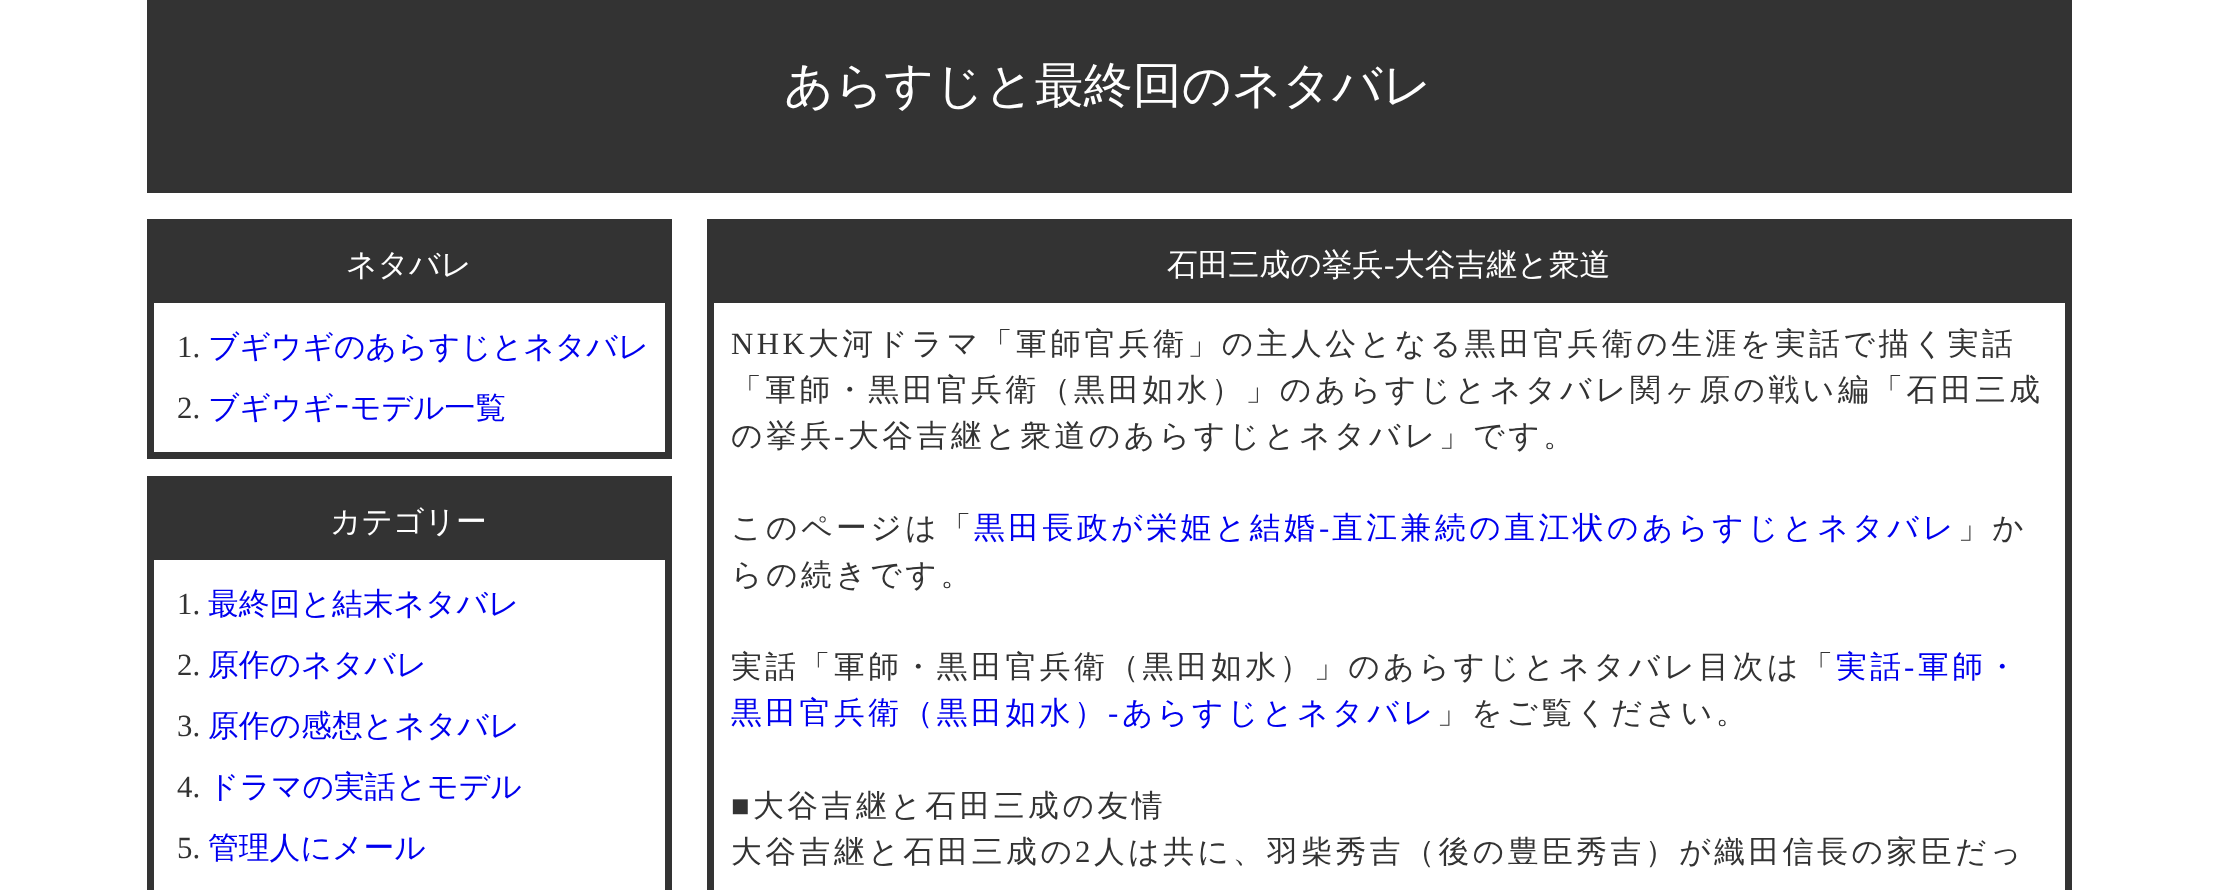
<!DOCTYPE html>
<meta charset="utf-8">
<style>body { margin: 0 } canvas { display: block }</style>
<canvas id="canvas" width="2216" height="890"></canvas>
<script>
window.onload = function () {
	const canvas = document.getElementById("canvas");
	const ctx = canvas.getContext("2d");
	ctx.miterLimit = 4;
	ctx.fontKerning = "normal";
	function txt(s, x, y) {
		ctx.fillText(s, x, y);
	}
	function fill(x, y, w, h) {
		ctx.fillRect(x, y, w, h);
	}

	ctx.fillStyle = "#FFFFFF";
	fill(0, 0, 2216, 890);
	ctx.fillStyle = "#333333";
	fill(147, 0, 1925, 193);
	ctx.strokeStyle = "#333333";
	ctx.lineWidth = 7;
	ctx.strokeRect(150.5, 222.5, 518, 233);
	fill(154, 226, 511, 77);
	ctx.strokeRect(150.5, 479.5, 518, 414);
	fill(154, 483, 511, 77);
	ctx.strokeRect(710.5, 222.5, 1358, 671);
	fill(714, 226, 1351, 77);
	ctx.font = "500 49px WenQuanYi Zen Hei";
	ctx.fillStyle = "#FFFFFF";
	txt("あらすじと最終回のネタバレ", 784, 102);
	ctx.font = "500 30.8px WenQuanYi Zen Hei";
	txt("ネタバレ", 346, 275);
	ctx.font = "30.8px Liberation Serif";
	ctx.fillStyle = "#333333";
	txt("1.", 177, 357);
	ctx.font = "500 30.8px WenQuanYi Zen Hei";
	ctx.fillStyle = "#0000EE";
	txt("ブギウギのあらすじとネタバレ", 208, 357);
	ctx.font = "30.8px Liberation Serif";
	ctx.fillStyle = "#333333";
	txt("2.", 177, 418);
	ctx.font = "500 30.8px WenQuanYi Zen Hei";
	ctx.fillStyle = "#0000EE";
	txt("ブギウギ", 208, 418);
	ctx.font = "30.8px IPAPGothic";
	txt("ｰ", 334, 418);
	ctx.font = "500 30.8px WenQuanYi Zen Hei";
	txt("モデル一覧", 350, 418);
	ctx.fillStyle = "#FFFFFF";
	txt("カテゴリー", 330, 532);
	ctx.font = "30.8px Liberation Serif";
	ctx.fillStyle = "#333333";
	txt("1.", 177, 614);
	ctx.font = "500 30.8px WenQuanYi Zen Hei";
	ctx.fillStyle = "#0000EE";
	txt("最終回と結末ネタバレ", 208, 614);
	ctx.font = "30.8px Liberation Serif";
	ctx.fillStyle = "#333333";
	txt("2.", 177, 675);
	ctx.font = "500 30.8px WenQuanYi Zen Hei";
	ctx.fillStyle = "#0000EE";
	txt("原作のネタバレ", 208, 675);
	ctx.font = "30.8px Liberation Serif";
	ctx.fillStyle = "#333333";
	txt("3.", 177, 736);
	ctx.font = "500 30.8px WenQuanYi Zen Hei";
	ctx.fillStyle = "#0000EE";
	txt("原作の感想とネタバレ", 208, 736);
	ctx.font = "30.8px Liberation Serif";
	ctx.fillStyle = "#333333";
	txt("4.", 177, 797);
	ctx.font = "500 30.8px WenQuanYi Zen Hei";
	ctx.fillStyle = "#0000EE";
	txt("ドラマの実話とモデル", 208, 797);
	ctx.font = "30.8px Liberation Serif";
	ctx.fillStyle = "#333333";
	txt("5.", 177, 858);
	ctx.font = "500 30.8px WenQuanYi Zen Hei";
	ctx.fillStyle = "#0000EE";
	txt("管理人にメール", 208, 858);
	ctx.fillStyle = "#FFFFFF";
	txt("石田三成の挙兵", 1167, 275);
	ctx.font = "30.8px Liberation Serif";
	txt("-", 1384, 275);
	ctx.font = "500 30.8px WenQuanYi Zen Hei";
	txt("大谷吉継と衆道", 1394, 275);
	ctx.letterSpacing = "3.5px";
	ctx.font = "30.8px Liberation Serif";
	ctx.fillStyle = "#333333";
	txt("NHK", 731, 354);
	ctx.font = "500 30.8px WenQuanYi Zen Hei";
	txt("大河ドラマ「軍師官兵衛」の主人公となる黒田官兵衛の生涯を実話で描く実話", 808, 354);
	txt("「軍師・黒田官兵衛（黒田如水）」のあらすじとネタバレ関ヶ原の戦い編「石田三成", 731, 400);
	txt("の挙兵", 731, 446);
	ctx.font = "30.8px Liberation Serif";
	txt("-", 834, 446);
	ctx.font = "500 30.8px WenQuanYi Zen Hei";
	txt("大谷吉継と衆道のあらすじとネタバレ」です。", 848, 446);
	txt("このページは「", 731, 538);
	ctx.fillStyle = "#0000EE";
	txt("黒田長政が栄姫と結婚", 974, 538);
	ctx.font = "30.8px Liberation Serif";
	txt("-", 1319, 538);
	ctx.font = "500 30.8px WenQuanYi Zen Hei";
	txt("直江兼続の直江状のあらすじとネタバレ", 1332, 538);
	ctx.fillStyle = "#333333";
	txt("」か", 1958, 538);
	txt("らの続きです。", 731, 585);
	txt("実話「軍師・黒田官兵衛（黒田如水）」のあらすじとネタバレ目次は「", 731, 677);
	ctx.fillStyle = "#0000EE";
	txt("実話", 1836, 677);
	ctx.font = "30.8px Liberation Serif";
	txt("-", 1904, 677);
	ctx.font = "500 30.8px WenQuanYi Zen Hei";
	txt("軍師・", 1918, 677);
	txt("黒田官兵衛（黒田如水）", 731, 723);
	ctx.font = "30.8px Liberation Serif";
	txt("-", 1108, 723);
	ctx.font = "500 30.8px WenQuanYi Zen Hei";
	txt("あらすじとネタバレ", 1122, 723);
	ctx.fillStyle = "#333333";
	txt("」をご覧ください。", 1437, 723);
	ctx.font = "30.8px Liberation Serif";
	txt("■", 731, 816);
	ctx.font = "500 30.8px WenQuanYi Zen Hei";
	txt("大谷吉継と石田三成の友情", 753, 816);
	txt("大谷吉継と石田三成の", 731, 862);
	ctx.font = "30.8px Liberation Serif";
	txt("2", 1075, 862);
	ctx.font = "500 30.8px WenQuanYi Zen Hei";
	txt("人は共に、羽柴秀吉（後の豊臣秀吉）が織田信長の家臣だっ", 1094, 862);
};
</script>
